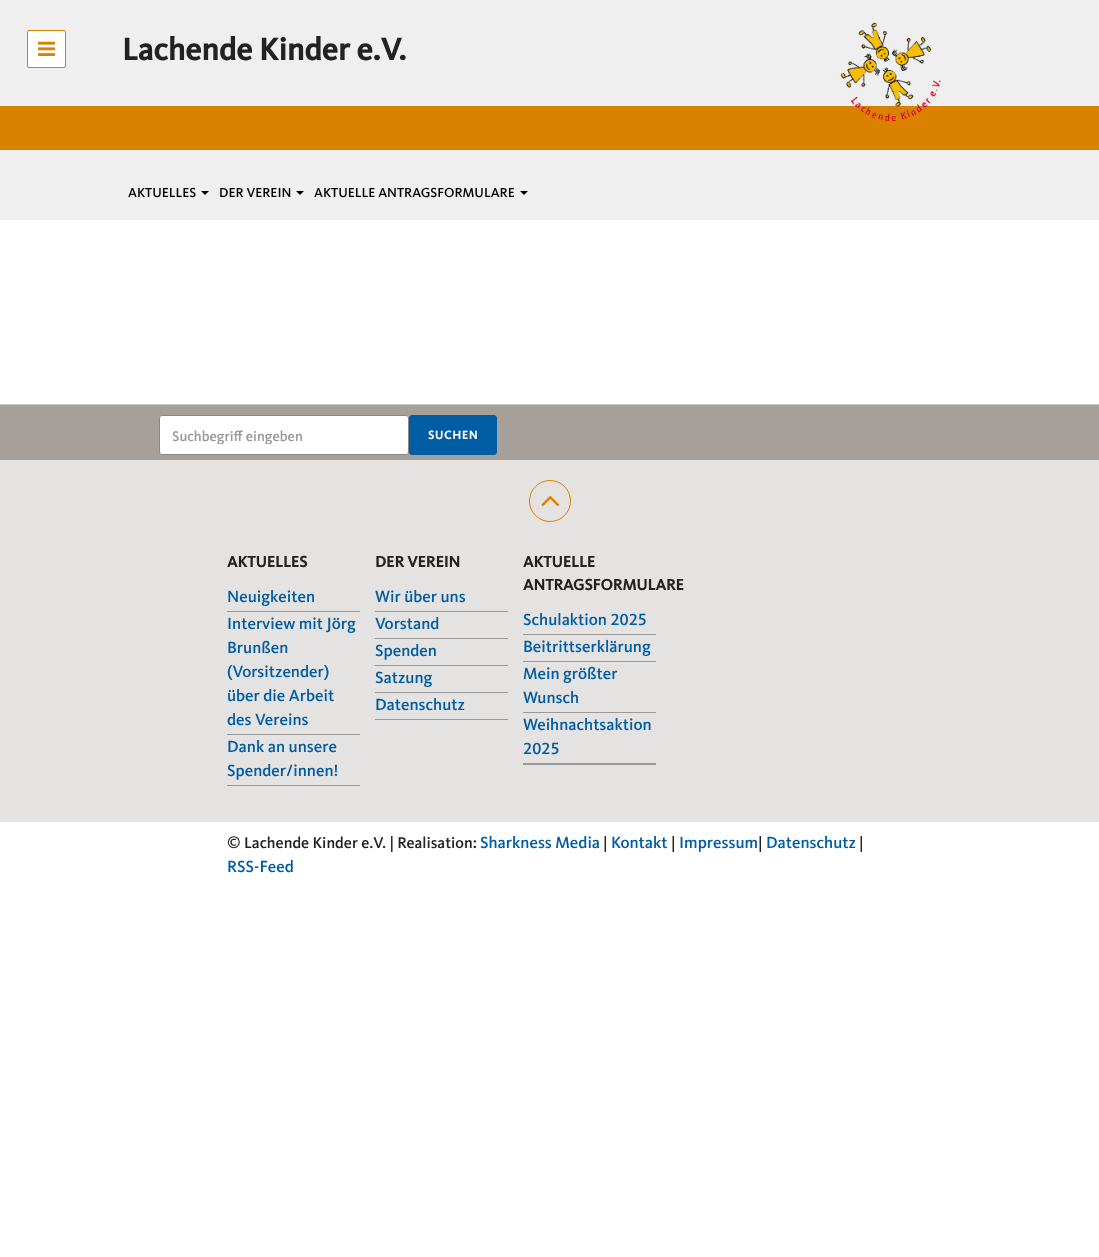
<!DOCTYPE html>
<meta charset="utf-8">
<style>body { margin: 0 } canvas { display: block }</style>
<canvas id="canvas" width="1099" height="1257"></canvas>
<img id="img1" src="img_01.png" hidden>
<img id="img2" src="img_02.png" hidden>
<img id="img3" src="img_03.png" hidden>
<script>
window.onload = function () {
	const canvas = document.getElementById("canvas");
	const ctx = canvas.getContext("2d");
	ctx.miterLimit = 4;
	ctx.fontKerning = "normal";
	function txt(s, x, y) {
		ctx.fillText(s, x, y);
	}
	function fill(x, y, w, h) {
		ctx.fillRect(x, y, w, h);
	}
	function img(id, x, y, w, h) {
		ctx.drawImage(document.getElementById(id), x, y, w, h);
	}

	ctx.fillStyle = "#FFFFFF";
	fill(0, 0, 1099, 1257);
	ctx.fillStyle = "#EFEFEF";
	fill(0, 0, 1099, 106);
	ctx.fillStyle = "#FFFFFF";
	ctx.beginPath();
	ctx.roundRect(27.5, 30.5, 38, 37, 1.5);
	ctx.fill();
	ctx.strokeStyle = "#DB8100";
	ctx.stroke();
	img("img1", 38, 41, 18, 15);
	ctx.fillStyle = "#DB8100";
	fill(0, 106, 1099, 44);
	img("img2", 840, 22, 101, 100);
	ctx.fillStyle = "#EFEFEF";
	fill(0, 150, 1099, 70);
	ctx.fillStyle = "#000000";
	ctx.beginPath();
	ctx.moveTo(201, 191);
	ctx.lineTo(209, 191);
	ctx.lineTo(205, 195);
	ctx.closePath();
	ctx.fill();
	ctx.beginPath();
	ctx.moveTo(296, 191);
	ctx.lineTo(304, 191);
	ctx.lineTo(300, 195);
	ctx.closePath();
	ctx.fill();
	ctx.beginPath();
	ctx.moveTo(520, 191);
	ctx.lineTo(528, 191);
	ctx.lineTo(524, 195);
	ctx.closePath();
	ctx.fill();
	ctx.fillStyle = "#C7C7C7";
	fill(0, 404, 1099, 1);
	ctx.fillStyle = "#A6A09B";
	fill(0, 405, 1099, 55);
	ctx.fillStyle = "#FFFFFF";
	ctx.beginPath();
	ctx.roundRect(159.5, 415.5, 249, 39, 2.5);
	ctx.fill();
	ctx.strokeStyle = "#888888";
	ctx.stroke();
	ctx.fillStyle = "#005DA4";
	ctx.beginPath();
	ctx.roundRect(409.5, 415.5, 87, 39, 2.5);
	ctx.fill();
	ctx.strokeStyle = "#005DA4";
	ctx.stroke();
	ctx.fillStyle = "#E5E3E1";
	fill(0, 460, 1099, 362);
	ctx.beginPath();
	ctx.arc(550, 501, 20.5, 0, Math.PI * 2);
	ctx.strokeStyle = "#DB8100";
	ctx.stroke();
	img("img3", 541, 495, 19, 12);
	ctx.fillStyle = "#999999";
	fill(227, 611, 133, 1);
	fill(227, 734, 133, 1);
	fill(227, 785, 133, 1);
	fill(375, 611, 133, 1);
	fill(375, 638, 133, 1);
	fill(375, 665, 133, 1);
	fill(375, 692, 133, 1);
	fill(375, 719, 133, 1);
	fill(523, 763, 133, 2);
	fill(523, 634, 133, 1);
	fill(523, 661, 133, 1);
	fill(523, 712, 133, 1);
	ctx.font = "bold 32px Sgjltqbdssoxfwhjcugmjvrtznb";
	ctx.fillStyle = "#222222";
	txt("Lachende Kinder e.V.", 122, 60);
	ctx.font = "500 13.6px Sgjltqbdssoxfwhjcugmjvrtznb";
	ctx.fillStyle = "#000000";
	txt("AKTUELLES", 128, 197);
	txt("DER VEREIN", 219, 197);
	txt("AKTUELLE ANTRAGSFORMULARE", 314, 197);
	ctx.save();
	ctx.beginPath();
	ctx.rect(172, 430, 224, 14);
	ctx.clip();
	ctx.font = "500 14.5px Sgjltqbdssoxfwhjcugmjvrtznb";
	ctx.fillStyle = "#999999";
	txt("Suchbegriff eingeben", 172, 441);
	ctx.restore();
	ctx.letterSpacing = "0.75px";
	ctx.font = "bold 12px Sgjltqbdssoxfwhjcugmjvrtznb";
	ctx.fillStyle = "#FFFFFF";
	txt("SUCHEN", 428, 439);
	ctx.letterSpacing = "0px";
	ctx.font = "bold 16px Sgjltqbdssoxfwhjcugmjvrtznb";
	ctx.fillStyle = "#222222";
	txt("AKTUELLES", 227, 567);
	ctx.font = "500 16.75px Sgjltqbdssoxfwhjcugmjvrtznb";
	ctx.fillStyle = "#005DA4";
	txt("Neuigkeiten", 227, 602);
	txt("Interview mit Jörg", 227, 629);
	txt("Brunßen", 227, 653);
	txt("(Vorsitzender)", 227, 677);
	txt("über die Arbeit", 227, 701);
	txt("des Vereins", 227, 725);
	txt("Dank an unsere", 227, 752);
	txt("Spender/innen!", 227, 776);
	ctx.font = "bold 16px Sgjltqbdssoxfwhjcugmjvrtznb";
	ctx.fillStyle = "#222222";
	txt("DER VEREIN", 375, 567);
	ctx.font = "500 16.75px Sgjltqbdssoxfwhjcugmjvrtznb";
	ctx.fillStyle = "#005DA4";
	txt("Wir über uns", 375, 602);
	txt("Vorstand", 375, 629);
	txt("Spenden", 375, 656);
	txt("Satzung", 375, 683);
	txt("Datenschutz", 375, 710);
	ctx.font = "bold 16px Sgjltqbdssoxfwhjcugmjvrtznb";
	ctx.fillStyle = "#222222";
	txt("AKTUELLE", 523, 567);
	txt("ANTRAGSFORMULARE", 523, 590);
	ctx.font = "500 16.75px Sgjltqbdssoxfwhjcugmjvrtznb";
	ctx.fillStyle = "#005DA4";
	txt("Schulaktion 2025", 523, 625);
	txt("Beitrittserklärung", 523, 652);
	txt("Mein größter", 523, 679);
	txt("Wunsch", 523, 703);
	txt("Weihnachtsaktion", 523, 730);
	txt("2025", 523, 754);
	ctx.font = "500 16px Sgjltqbdssoxfwhjcugmjvrtznb";
	ctx.fillStyle = "#222222";
	txt("© Lachende Kinder e.V. | Realisation:", 227, 848);
	ctx.font = "500 16.75px Sgjltqbdssoxfwhjcugmjvrtznb";
	ctx.fillStyle = "#005DA4";
	txt("Sharkness Media", 480, 848);
	ctx.font = "500 16px Sgjltqbdssoxfwhjcugmjvrtznb";
	ctx.fillStyle = "#222222";
	txt("|", 603, 848);
	ctx.font = "500 16.75px Sgjltqbdssoxfwhjcugmjvrtznb";
	ctx.fillStyle = "#005DA4";
	txt("Kontakt", 611, 848);
	ctx.font = "500 16px Sgjltqbdssoxfwhjcugmjvrtznb";
	ctx.fillStyle = "#222222";
	txt("|", 671, 848);
	ctx.font = "500 16.75px Sgjltqbdssoxfwhjcugmjvrtznb";
	ctx.fillStyle = "#005DA4";
	txt("Impressum", 679, 848);
	ctx.font = "500 16px Sgjltqbdssoxfwhjcugmjvrtznb";
	ctx.fillStyle = "#222222";
	txt("|", 758, 848);
	ctx.font = "500 16.75px Sgjltqbdssoxfwhjcugmjvrtznb";
	ctx.fillStyle = "#005DA4";
	txt("Datenschutz", 766, 848);
	ctx.font = "500 16px Sgjltqbdssoxfwhjcugmjvrtznb";
	ctx.fillStyle = "#222222";
	txt("|", 859, 848);
	ctx.font = "500 16.75px Sgjltqbdssoxfwhjcugmjvrtznb";
	ctx.fillStyle = "#005DA4";
	txt("RSS-Feed", 227, 872);
};
</script>
